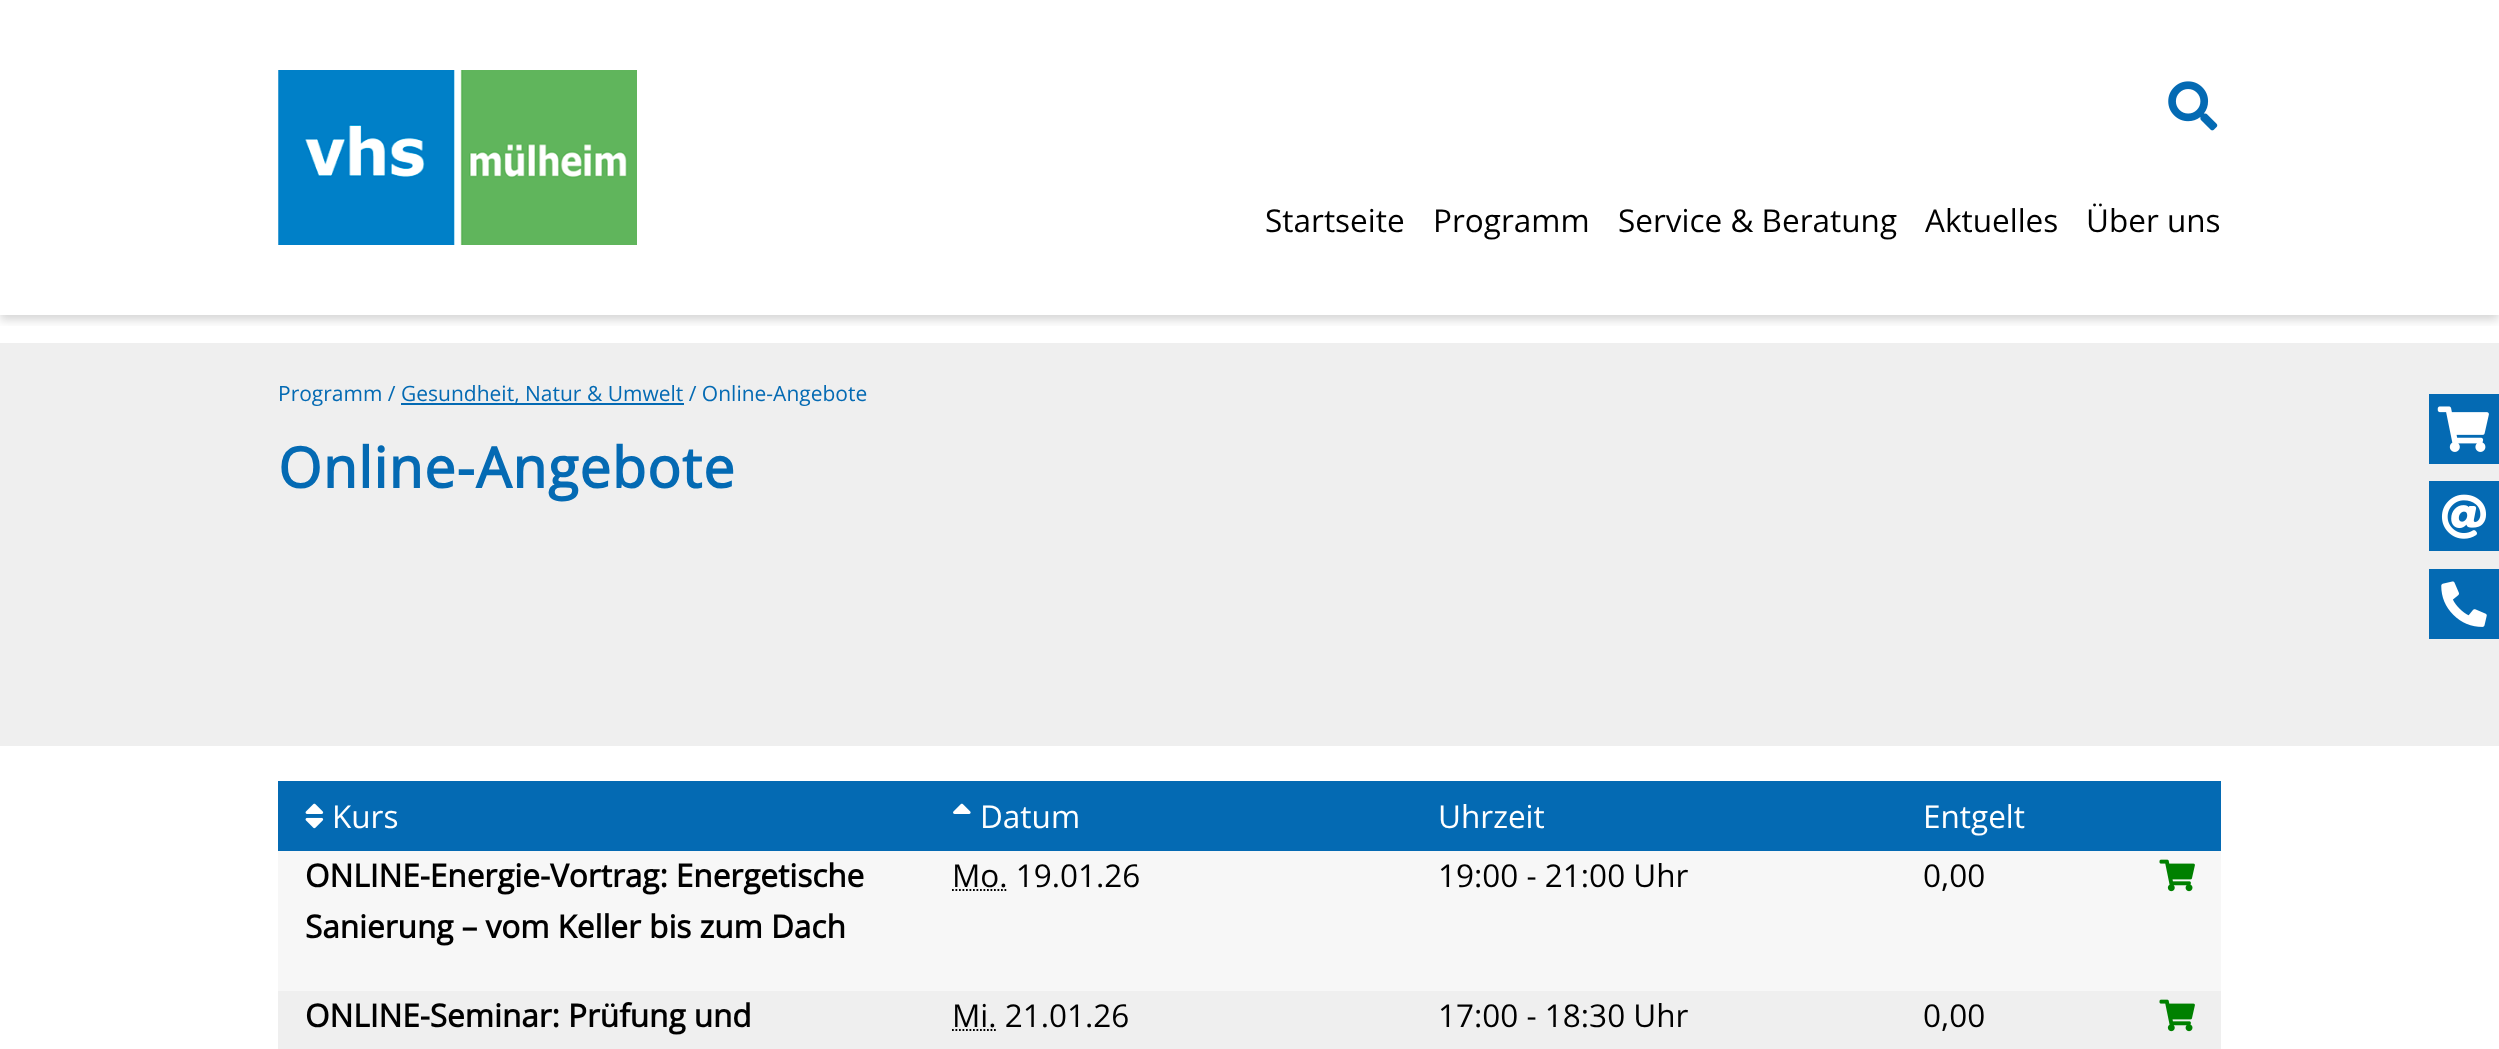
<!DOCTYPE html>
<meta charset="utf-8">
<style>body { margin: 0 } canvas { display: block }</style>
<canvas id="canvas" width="2499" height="1049"></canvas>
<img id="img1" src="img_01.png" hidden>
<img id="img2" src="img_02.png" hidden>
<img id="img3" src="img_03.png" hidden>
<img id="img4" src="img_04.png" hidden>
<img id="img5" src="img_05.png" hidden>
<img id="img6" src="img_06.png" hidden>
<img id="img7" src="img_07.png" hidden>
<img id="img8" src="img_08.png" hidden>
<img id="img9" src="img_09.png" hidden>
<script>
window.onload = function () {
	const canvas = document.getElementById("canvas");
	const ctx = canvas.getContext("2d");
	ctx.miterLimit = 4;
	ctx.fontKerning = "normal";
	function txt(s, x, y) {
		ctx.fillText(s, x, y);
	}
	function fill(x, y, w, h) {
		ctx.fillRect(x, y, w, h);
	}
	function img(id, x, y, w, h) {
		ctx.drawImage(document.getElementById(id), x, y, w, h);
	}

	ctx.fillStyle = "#FFFFFF";
	fill(0, 0, 2499, 1049);
	ctx.save();
	ctx.beginPath();
	ctx.rect(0, 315, 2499, 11);
	ctx.clip();
	ctx.fillStyle = "rgba(0, 0, 0, 0.16)";
	ctx.filter = "blur(5px)";
	ctx.beginPath();
	ctx.rect(0, 5, 2499, 315);
	ctx.fill();
	ctx.filter = "none";
	ctx.restore();
	img("img1", 278, 70, 359, 175);
	img("img2", 2168, 81, 50, 50);
	ctx.fillStyle = "#EFEFEF";
	fill(0, 343, 2499, 403);
	ctx.fillStyle = "#046AB3";
	fill(401, 403, 283, 2);
	fill(278, 781, 1943, 70);
	img("img3", 305, 803, 19, 26);
	img("img4", 953, 803, 18, 11);
	ctx.fillStyle = "#F7F7F7";
	fill(278, 851, 1943, 140);
	ctx.beginPath();
	ctx.moveTo(952, 890);
	ctx.lineTo(1007.5, 890);
	ctx.strokeStyle = "#000000";
	ctx.lineWidth = 1.8;
	ctx.setLineDash([1.75, 1.75]);
	ctx.stroke();
	img("img5", 2159, 859, 36, 33);
	ctx.fillStyle = "#EFEFEF";
	fill(278, 991, 1943, 58);
	ctx.beginPath();
	ctx.moveTo(952, 1030);
	ctx.lineTo(996.5, 1030);
	ctx.stroke();
	img("img6", 2159, 999, 36, 33);
	ctx.fillStyle = "#046AB3";
	fill(2429, 394, 70, 70);
	img("img7", 2437, 406, 52, 46);
	fill(2429, 481, 70, 70);
	img("img8", 2441, 494, 46, 45);
	fill(2429, 569, 70, 70);
	img("img9", 2441, 581, 46, 46);
	ctx.font = "31.5px Open Sans";
	ctx.fillStyle = "#000000";
	txt("Startseite", 1265, 232);
	txt("Programm", 1433, 232);
	txt("Service & Beratung", 1618, 232);
	txt("Aktuelles", 1925, 232);
	txt("Über uns", 2086, 232);
	ctx.font = "21px Open Sans";
	ctx.fillStyle = "#046AB3";
	txt("Programm /", 278, 401);
	txt("Gesundheit, Natur & Umwelt / Online-Angebote", 401, 401);
	ctx.letterSpacing = "1.1px";
	ctx.font = "bold 56px Open Sans";
	txt("Online-Angebote", 278, 488);
	ctx.letterSpacing = "0px";
	ctx.font = "31.5px Open Sans";
	ctx.fillStyle = "#FFFFFF";
	txt("Kurs", 332, 828);
	txt("Datum", 980, 828);
	txt("Uhrzeit", 1438, 828);
	txt("Entgelt", 1923, 828);
	ctx.font = "bold 31.5px Open Sans";
	ctx.fillStyle = "#000000";
	txt("ONLINE-Energie-Vortrag: Energetische", 305, 887);
	txt("Sanierung – vom Keller bis zum Dach", 305, 938);
	ctx.font = "31.5px Open Sans";
	txt("Mo. 19.01.26", 952, 887);
	txt("19:00 - 21:00 Uhr", 1438, 887);
	txt("0,00", 1923, 887);
	ctx.font = "bold 31.5px Open Sans";
	txt("ONLINE-Seminar: Prüfung und", 305, 1027);
	ctx.font = "31.5px Open Sans";
	txt("Mi. 21.01.26", 952, 1027);
	txt("17:00 - 18:30 Uhr", 1438, 1027);
	txt("0,00", 1923, 1027);
};
</script>
